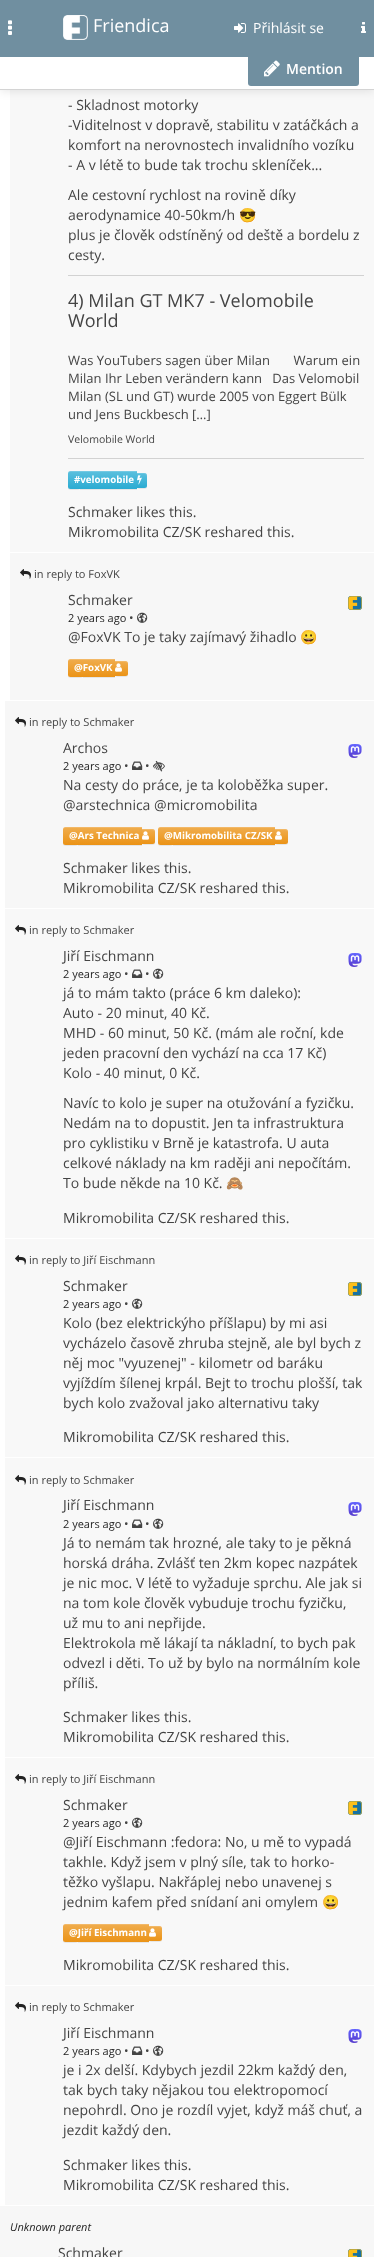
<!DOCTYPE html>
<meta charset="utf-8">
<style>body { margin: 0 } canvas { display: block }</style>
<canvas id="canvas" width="374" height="2257"></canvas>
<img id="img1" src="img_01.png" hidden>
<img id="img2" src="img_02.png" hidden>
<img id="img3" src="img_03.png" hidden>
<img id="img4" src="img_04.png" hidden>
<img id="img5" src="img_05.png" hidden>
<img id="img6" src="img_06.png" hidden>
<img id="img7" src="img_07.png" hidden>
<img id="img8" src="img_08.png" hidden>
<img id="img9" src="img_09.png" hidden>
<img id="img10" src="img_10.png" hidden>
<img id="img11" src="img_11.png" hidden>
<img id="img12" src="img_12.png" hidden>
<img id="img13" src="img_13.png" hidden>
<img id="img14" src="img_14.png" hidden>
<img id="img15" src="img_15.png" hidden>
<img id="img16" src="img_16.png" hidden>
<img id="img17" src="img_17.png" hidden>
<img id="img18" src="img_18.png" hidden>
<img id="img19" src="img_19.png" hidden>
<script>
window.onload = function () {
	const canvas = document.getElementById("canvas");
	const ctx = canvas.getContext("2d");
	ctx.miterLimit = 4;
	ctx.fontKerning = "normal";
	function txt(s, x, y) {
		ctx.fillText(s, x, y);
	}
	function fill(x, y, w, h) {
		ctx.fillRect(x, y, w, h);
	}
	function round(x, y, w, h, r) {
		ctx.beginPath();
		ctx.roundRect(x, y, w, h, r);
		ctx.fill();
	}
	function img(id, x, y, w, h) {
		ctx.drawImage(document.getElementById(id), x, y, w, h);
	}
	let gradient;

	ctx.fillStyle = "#FFFFFF";
	fill(0, 0, 374, 2257);
	ctx.fillStyle = "#F8F8F8";
	fill(10, 90, 364, 462);
	ctx.fillStyle = "rgba(0, 0, 0, 0.1)";
	ctx.filter = "blur(5px)";
	ctx.beginPath();
	ctx.rect(0, 51, 374, 40);
	ctx.fill();
	ctx.filter = "none";
	ctx.fillStyle = "#FFFFFF";
	fill(0, 57, 374, 32);
	ctx.fillStyle = "#708FA0";
	round(248, 52, 111, 34, 3);
	fill(0, 0, 374, 57);
	img("img1", 8, 20, 4, 15);
	img("img2", 63, 15, 25, 25);
	img("img3", 234, 23, 12, 10);
	img("img4", 361, 22, 5, 11);
	ctx.fillStyle = "#D4D4D4";
	fill(0, 89, 374, 1);
	img("img5", 264, 60, 16, 17);
	ctx.fillStyle = "#D2D2D2";
	fill(68, 275, 296, 1);
	fill(68, 458, 296, 1);
	ctx.fillStyle = "rgba(0, 0, 0, 0.07)";
	ctx.filter = "blur(0.5px)";
	ctx.beginPath();
	ctx.roundRect(68, 472, 12, 18, 2.5);
	ctx.fill();
	ctx.filter = "none";
	gradient = ctx.createLinearGradient(74, 471, 74, 489);
	gradient.addColorStop(0, "#5BC0DE");
	gradient.addColorStop(1, "#2AABD2");
	ctx.fillStyle = gradient;
	ctx.beginPath();
	ctx.roundRect(68, 471, 12, 18, [2.5, 0, 0, 2.5]);
	ctx.fill();
	ctx.fillStyle = "rgba(255, 255, 255, 0.15)";
	ctx.beginPath();
	ctx.moveTo(70, 472);
	ctx.lineTo(80, 472);
	ctx.lineTo(80, 471);
	ctx.lineTo(73.5, 471);
	ctx.bezierCurveTo(70, 471, 68, 470.5, 68, 474.5);
	ctx.bezierCurveTo(68, 473, 69, 472, 70, 472);
	ctx.closePath();
	ctx.moveTo(68, 487.5);
	ctx.lineTo(68, 481);
	ctx.closePath();
	ctx.fill("evenodd");
	ctx.fillStyle = "rgba(0, 0, 0, 0.07)";
	ctx.filter = "blur(0.5px)";
	ctx.beginPath();
	ctx.rect(80, 472, 54, 18);
	ctx.fill();
	ctx.filter = "none";
	gradient = ctx.createLinearGradient(107, 471, 107, 489);
	gradient.addColorStop(0, "#5BC0DE");
	gradient.addColorStop(1, "#2AABD2");
	ctx.fillStyle = gradient;
	fill(80, 472, 54, 17);
	ctx.fillStyle = "#73C9E3";
	fill(80, 471, 54, 1);
	ctx.fillStyle = "rgba(0, 0, 0, 0.07)";
	ctx.filter = "blur(0.5px)";
	ctx.beginPath();
	ctx.rect(134, 472, 3, 18);
	ctx.fill();
	ctx.filter = "none";
	gradient = ctx.createLinearGradient(136, 471, 136, 489);
	gradient.addColorStop(0, "#5BC0DE");
	gradient.addColorStop(1, "#2AABD2");
	ctx.fillStyle = gradient;
	fill(134, 471, 3, 18);
	ctx.fillStyle = "#73C9E3";
	fill(134, 471, 3, 1);
	ctx.fillStyle = "rgba(0, 0, 0, 0.07)";
	ctx.filter = "blur(0.5px)";
	ctx.beginPath();
	ctx.roundRect(137, 474, 10, 15, 2.5);
	ctx.fill();
	ctx.filter = "none";
	gradient = ctx.createLinearGradient(142, 473, 142, 488);
	gradient.addColorStop(0, "#5BC0DE");
	gradient.addColorStop(1, "#2AABD2");
	ctx.fillStyle = gradient;
	ctx.beginPath();
	ctx.roundRect(137, 473, 10, 15, [0, 2.5, 2.5, 0]);
	ctx.fill();
	ctx.fillStyle = "rgba(255, 255, 255, 0.15)";
	ctx.beginPath();
	ctx.moveTo(137, 474);
	ctx.bezierCurveTo(139.5, 474, 144.5, 473, 146, 474.5);
	ctx.bezierCurveTo(147, 476, 147, 478, 147, 479);
	ctx.lineTo(147, 486.5);
	ctx.bezierCurveTo(147.5, 485, 147, 480.5, 147, 479);
	ctx.bezierCurveTo(147, 475, 147.5, 473, 143, 473);
	ctx.lineTo(137, 473);
	ctx.closePath();
	ctx.fill();
	img("img6", 137, 475, 5, 10);
	ctx.fillStyle = "#F7F7F7";
	fill(10, 553, 364, 147);
	img("img7", 20, 569, 11, 10);
	img("img8", 137, 612, 11, 11);
	img("img9", 348, 596, 14, 14);
	ctx.fillStyle = "rgba(0, 0, 0, 0.07)";
	ctx.filter = "blur(0.5px)";
	ctx.beginPath();
	ctx.roundRect(68, 660, 15, 18, 2.5);
	ctx.fill();
	ctx.filter = "none";
	gradient = ctx.createLinearGradient(76, 659, 76, 677);
	gradient.addColorStop(0, "#F0AD4E");
	gradient.addColorStop(1, "#EB9316");
	ctx.fillStyle = gradient;
	ctx.beginPath();
	ctx.roundRect(68, 659, 15, 18, [2.5, 0, 0, 2.5]);
	ctx.fill();
	ctx.fillStyle = "rgba(255, 255, 255, 0.15)";
	ctx.beginPath();
	ctx.moveTo(70, 660);
	ctx.lineTo(83, 660);
	ctx.lineTo(83, 659);
	ctx.lineTo(74.5, 659);
	ctx.bezierCurveTo(72, 659, 68, 658, 68, 662);
	ctx.bezierCurveTo(68, 661, 69, 660, 70, 660);
	ctx.closePath();
	ctx.fill();
	ctx.fillStyle = "rgba(0, 0, 0, 0.07)";
	ctx.filter = "blur(0.5px)";
	ctx.beginPath();
	ctx.rect(83, 660, 29, 18);
	ctx.fill();
	ctx.filter = "none";
	gradient = ctx.createLinearGradient(98, 659, 98, 677);
	gradient.addColorStop(0, "#F0AD4E");
	gradient.addColorStop(1, "#EB9316");
	ctx.fillStyle = gradient;
	fill(83, 660, 29, 17);
	ctx.fillStyle = "#F2B867";
	fill(83, 659, 29, 1);
	ctx.fillStyle = "rgba(0, 0, 0, 0.07)";
	ctx.filter = "blur(0.5px)";
	ctx.beginPath();
	ctx.rect(112, 660, 3, 18);
	ctx.fill();
	ctx.filter = "none";
	gradient = ctx.createLinearGradient(114, 659, 114, 677);
	gradient.addColorStop(0, "#F0AD4E");
	gradient.addColorStop(1, "#EB9316");
	ctx.fillStyle = gradient;
	fill(112, 659, 3, 18);
	ctx.fillStyle = "#F2B867";
	fill(112, 659, 3, 1);
	ctx.fillStyle = "rgba(0, 0, 0, 0.07)";
	ctx.filter = "blur(0.5px)";
	ctx.beginPath();
	ctx.roundRect(115, 662, 13, 15, 2.5);
	ctx.fill();
	ctx.filter = "none";
	gradient = ctx.createLinearGradient(122, 661, 122, 676);
	gradient.addColorStop(0, "#F0AD4E");
	gradient.addColorStop(1, "#EB9316");
	ctx.fillStyle = gradient;
	ctx.beginPath();
	ctx.roundRect(115, 661, 13, 15, [0, 2.5, 2.5, 0]);
	ctx.fill();
	ctx.fillStyle = "rgba(255, 255, 255, 0.15)";
	ctx.beginPath();
	ctx.moveTo(115, 662);
	ctx.lineTo(124, 662);
	ctx.bezierCurveTo(127, 662, 128, 663, 128, 665);
	ctx.bezierCurveTo(128, 660.5, 126, 661, 122, 661);
	ctx.lineTo(115, 661);
	ctx.closePath();
	ctx.fill();
	img("img10", 115, 663, 7, 9);
	ctx.fillStyle = "#F7F7F7";
	fill(5, 701, 369, 207);
	img("img7", 15, 717, 11, 10);
	img("img11", 132, 761, 11, 9);
	img("img12", 153, 760, 12, 12);
	img("img13", 348, 744, 14, 14);
	ctx.fillStyle = "rgba(0, 0, 0, 0.07)";
	ctx.filter = "blur(0.5px)";
	ctx.beginPath();
	ctx.roundRect(63, 828, 15, 18, 2.5);
	ctx.fill();
	ctx.filter = "none";
	gradient = ctx.createLinearGradient(71, 827, 71, 845);
	gradient.addColorStop(0, "#F0AD4E");
	gradient.addColorStop(1, "#EB9316");
	ctx.fillStyle = gradient;
	ctx.beginPath();
	ctx.roundRect(63, 827, 15, 18, [2.5, 0, 0, 2.5]);
	ctx.fill();
	ctx.fillStyle = "rgba(255, 255, 255, 0.15)";
	ctx.beginPath();
	ctx.moveTo(65, 828);
	ctx.lineTo(78, 828);
	ctx.lineTo(78, 827);
	ctx.lineTo(69.5, 827);
	ctx.bezierCurveTo(67, 827, 63, 826, 63, 830);
	ctx.bezierCurveTo(63, 829, 64, 828, 65, 828);
	ctx.closePath();
	ctx.fill();
	ctx.fillStyle = "rgba(0, 0, 0, 0.07)";
	ctx.filter = "blur(0.5px)";
	ctx.beginPath();
	ctx.rect(78, 828, 61, 18);
	ctx.fill();
	ctx.filter = "none";
	gradient = ctx.createLinearGradient(109, 827, 109, 845);
	gradient.addColorStop(0, "#F0AD4E");
	gradient.addColorStop(1, "#EB9316");
	ctx.fillStyle = gradient;
	fill(78, 828, 61, 17);
	ctx.fillStyle = "#F2B867";
	fill(78, 827, 61, 1);
	ctx.fillStyle = "rgba(0, 0, 0, 0.07)";
	ctx.filter = "blur(0.5px)";
	ctx.beginPath();
	ctx.rect(139, 828, 3, 18);
	ctx.fill();
	ctx.filter = "none";
	gradient = ctx.createLinearGradient(141, 827, 141, 845);
	gradient.addColorStop(0, "#F0AD4E");
	gradient.addColorStop(1, "#EB9316");
	ctx.fillStyle = gradient;
	fill(139, 827, 3, 18);
	ctx.fillStyle = "#F2B867";
	fill(139, 827, 3, 1);
	ctx.fillStyle = "rgba(0, 0, 0, 0.07)";
	ctx.filter = "blur(0.5px)";
	ctx.beginPath();
	ctx.roundRect(142, 830, 13, 15, 2.5);
	ctx.fill();
	ctx.filter = "none";
	gradient = ctx.createLinearGradient(149, 829, 149, 844);
	gradient.addColorStop(0, "#F0AD4E");
	gradient.addColorStop(1, "#EB9316");
	ctx.fillStyle = gradient;
	ctx.beginPath();
	ctx.roundRect(142, 829, 13, 15, [0, 2.5, 2.5, 0]);
	ctx.fill();
	ctx.fillStyle = "rgba(255, 255, 255, 0.15)";
	ctx.beginPath();
	ctx.moveTo(142, 830);
	ctx.lineTo(151, 830);
	ctx.bezierCurveTo(154, 830, 155, 831, 155, 833);
	ctx.bezierCurveTo(155, 828.5, 153, 829, 149, 829);
	ctx.lineTo(142, 829);
	ctx.closePath();
	ctx.fill();
	img("img10", 142, 831, 7, 9);
	ctx.fillStyle = "rgba(0, 0, 0, 0.07)";
	ctx.filter = "blur(0.5px)";
	ctx.beginPath();
	ctx.roundRect(158, 828, 15, 18, 2.5);
	ctx.fill();
	ctx.filter = "none";
	gradient = ctx.createLinearGradient(166, 827, 166, 845);
	gradient.addColorStop(0, "#F0AD4E");
	gradient.addColorStop(1, "#EB9316");
	ctx.fillStyle = gradient;
	ctx.beginPath();
	ctx.roundRect(158, 827, 15, 18, [2.5, 0, 0, 2.5]);
	ctx.fill();
	ctx.fillStyle = "rgba(255, 255, 255, 0.15)";
	ctx.beginPath();
	ctx.moveTo(160, 828);
	ctx.lineTo(173, 828);
	ctx.lineTo(173, 827);
	ctx.lineTo(164.5, 827);
	ctx.bezierCurveTo(162, 827, 158, 826, 158, 830);
	ctx.bezierCurveTo(158, 829, 159, 828, 160, 828);
	ctx.closePath();
	ctx.fill();
	ctx.fillStyle = "rgba(0, 0, 0, 0.07)";
	ctx.filter = "blur(0.5px)";
	ctx.beginPath();
	ctx.rect(173, 828, 99, 18);
	ctx.fill();
	ctx.filter = "none";
	gradient = ctx.createLinearGradient(223, 827, 223, 845);
	gradient.addColorStop(0, "#F0AD4E");
	gradient.addColorStop(1, "#EB9316");
	ctx.fillStyle = gradient;
	fill(173, 828, 99, 17);
	ctx.fillStyle = "#F2B867";
	fill(173, 827, 99, 1);
	ctx.fillStyle = "rgba(0, 0, 0, 0.07)";
	ctx.filter = "blur(0.5px)";
	ctx.beginPath();
	ctx.rect(272, 828, 3, 18);
	ctx.fill();
	ctx.filter = "none";
	gradient = ctx.createLinearGradient(274, 827, 274, 845);
	gradient.addColorStop(0, "#F0AD4E");
	gradient.addColorStop(1, "#EB9316");
	ctx.fillStyle = gradient;
	fill(272, 827, 3, 18);
	ctx.fillStyle = "#F2B867";
	fill(272, 827, 3, 1);
	ctx.fillStyle = "rgba(0, 0, 0, 0.07)";
	ctx.filter = "blur(0.5px)";
	ctx.beginPath();
	ctx.roundRect(275, 830, 13, 15, 2.5);
	ctx.fill();
	ctx.filter = "none";
	gradient = ctx.createLinearGradient(282, 829, 282, 844);
	gradient.addColorStop(0, "#F0AD4E");
	gradient.addColorStop(1, "#EB9316");
	ctx.fillStyle = gradient;
	ctx.beginPath();
	ctx.roundRect(275, 829, 13, 15, [0, 2.5, 2.5, 0]);
	ctx.fill();
	ctx.fillStyle = "rgba(255, 255, 255, 0.15)";
	ctx.beginPath();
	ctx.moveTo(275, 830);
	ctx.lineTo(284, 830);
	ctx.bezierCurveTo(287, 830, 288, 831, 288, 833);
	ctx.bezierCurveTo(288, 828.5, 286, 829, 282, 829);
	ctx.lineTo(275, 829);
	ctx.closePath();
	ctx.fill();
	img("img10", 275, 831, 7, 9);
	ctx.fillStyle = "#F8F8F8";
	fill(5, 909, 369, 329);
	img("img14", 15, 925, 11, 10);
	img("img15", 132, 969, 11, 9);
	img("img16", 153, 968, 11, 11);
	img("img17", 348, 953, 14, 14);
	fill(5, 1239, 369, 218);
	img("img14", 15, 1255, 11, 10);
	img("img16", 132, 1298, 11, 11);
	img("img18", 348, 1282, 14, 14);
	fill(5, 1458, 369, 299);
	img("img14", 15, 1475, 11, 10);
	img("img15", 132, 1519, 11, 9);
	img("img16", 153, 1518, 11, 11);
	img("img17", 348, 1502, 14, 14);
	fill(5, 1758, 369, 227);
	img("img14", 15, 1774, 11, 10);
	img("img16", 132, 1817, 11, 11);
	img("img18", 348, 1801, 14, 14);
	ctx.fillStyle = "rgba(0, 0, 0, 0.07)";
	ctx.filter = "blur(0.5px)";
	ctx.beginPath();
	ctx.roundRect(63, 1925, 15, 18, 2.5);
	ctx.fill();
	ctx.filter = "none";
	gradient = ctx.createLinearGradient(71, 1924, 71, 1942);
	gradient.addColorStop(0, "#F0AD4E");
	gradient.addColorStop(1, "#EB9316");
	ctx.fillStyle = gradient;
	ctx.beginPath();
	ctx.roundRect(63, 1924, 15, 18, [2.5, 0, 0, 2.5]);
	ctx.fill();
	ctx.fillStyle = "rgba(255, 255, 255, 0.15)";
	ctx.beginPath();
	ctx.moveTo(65, 1925);
	ctx.lineTo(78, 1925);
	ctx.lineTo(78, 1924);
	ctx.lineTo(69.5, 1924);
	ctx.bezierCurveTo(67, 1924, 63, 1923, 63, 1927);
	ctx.bezierCurveTo(63, 1926, 64, 1925, 65, 1925);
	ctx.closePath();
	ctx.fill();
	ctx.fillStyle = "rgba(0, 0, 0, 0.07)";
	ctx.filter = "blur(0.5px)";
	ctx.beginPath();
	ctx.rect(78, 1925, 69, 18);
	ctx.fill();
	ctx.filter = "none";
	gradient = ctx.createLinearGradient(113, 1924, 113, 1942);
	gradient.addColorStop(0, "#F0AD4E");
	gradient.addColorStop(1, "#EB9316");
	ctx.fillStyle = gradient;
	fill(78, 1925, 69, 17);
	ctx.fillStyle = "#F2B867";
	fill(78, 1924, 69, 1);
	ctx.fillStyle = "rgba(0, 0, 0, 0.07)";
	ctx.filter = "blur(0.5px)";
	ctx.beginPath();
	ctx.rect(147, 1925, 2, 18);
	ctx.fill();
	ctx.filter = "none";
	gradient = ctx.createLinearGradient(148, 1924, 148, 1942);
	gradient.addColorStop(0, "#F0AD4E");
	gradient.addColorStop(1, "#EB9316");
	ctx.fillStyle = gradient;
	fill(147, 1924, 2, 18);
	ctx.fillStyle = "#F2B867";
	fill(147, 1924, 2, 1);
	ctx.fillStyle = "rgba(0, 0, 0, 0.07)";
	ctx.filter = "blur(0.5px)";
	ctx.beginPath();
	ctx.roundRect(149, 1927, 13, 15, 2.5);
	ctx.fill();
	ctx.filter = "none";
	gradient = ctx.createLinearGradient(156, 1926, 156, 1941);
	gradient.addColorStop(0, "#F0AD4E");
	gradient.addColorStop(1, "#EB9316");
	ctx.fillStyle = gradient;
	ctx.beginPath();
	ctx.roundRect(149, 1926, 13, 15, [0, 2.5, 2.5, 0]);
	ctx.fill();
	ctx.fillStyle = "rgba(255, 255, 255, 0.15)";
	ctx.beginPath();
	ctx.moveTo(149, 1927);
	ctx.lineTo(158, 1927);
	ctx.bezierCurveTo(161, 1927, 162, 1928, 162, 1929.5);
	ctx.bezierCurveTo(162, 1925.5, 159.5, 1926, 156, 1926);
	ctx.lineTo(149, 1926);
	ctx.closePath();
	ctx.fill();
	img("img10", 149, 1928, 7, 9);
	ctx.fillStyle = "#F8F8F8";
	fill(5, 1986, 369, 219);
	img("img14", 15, 2002, 11, 10);
	img("img15", 132, 2046, 11, 9);
	img("img16", 153, 2045, 11, 11);
	img("img17", 348, 2029, 14, 14);
	ctx.fillStyle = "#F7F7F7";
	fill(0, 2206, 374, 51);
	img("img19", 348, 2249, 14, 8);
	ctx.font = "18px Open Sans";
	ctx.fillStyle = "#FFFFFF";
	txt("Friendica", 93, 32);
	ctx.font = "14px Open Sans";
	txt("Přihlásit se", 253, 33);
	ctx.font = "600 14px Open Sans";
	txt("Mention", 286, 74);
	ctx.font = "14px Open Sans";
	ctx.fillStyle = "#444444";
	txt("- Skladnost motorky", 68, 110);
	txt("-Viditelnost v dopravě, stabilitu v zatáčkách a", 68, 130);
	txt("komfort na nerovnostech invalidního vozíku", 68, 150);
	txt("- A v létě to bude tak trochu skleníček...", 68, 170);
	txt("Ale cestovní rychlost na rovině díky", 68, 200);
	txt("aerodynamice 40-50km/h", 68, 220);
	ctx.font = "14px Noto Color Emoji";
	txt("😎", 239, 220);
	ctx.font = "14px Open Sans";
	txt("plus je člověk odstíněný od deště a bordelu z", 68, 240);
	txt("cesty.", 68, 260);
	ctx.font = "18px Open Sans";
	txt("4) Milan GT MK7 - Velomobile", 68, 307);
	txt("World", 68, 327);
	ctx.font = "13px Open Sans";
	txt("Was YouTubers sagen über Milan       Warum ein", 68, 365);
	txt("Milan Ihr Leben verändern kann   Das Velomobil", 68, 383);
	txt("Milan (SL und GT) wurde 2005 von Eggert Bülk", 68, 401);
	txt("und Jens Buckbesch […]", 68, 419);
	ctx.font = "10.5px Open Sans";
	txt("Velomobile World", 68, 443);
	ctx.font = "bold 9.75px Open Sans";
	ctx.fillStyle = "#FFFFFF";
	txt("#velomobile", 74, 483);
	ctx.font = "14px Open Sans";
	ctx.fillStyle = "#444444";
	txt("Schmaker likes this.", 68, 517);
	txt("Mikromobilita CZ/SK reshared this.", 68, 537);
	ctx.font = "11px Open Sans";
	txt("in reply to FoxVK", 34, 578);
	ctx.font = "14px Open Sans";
	txt("Schmaker", 68, 605);
	ctx.font = "11px Open Sans";
	ctx.fillStyle = "#222222";
	txt("2 years ago", 68, 622);
	ctx.font = "12px Open Sans";
	ctx.fillStyle = "#444444";
	txt("•", 129, 622);
	ctx.font = "14px Open Sans";
	txt("@FoxVK To je taky zajímavý žihadlo", 68, 642);
	ctx.font = "14px Noto Color Emoji";
	txt("😀", 300, 642);
	ctx.font = "bold 9.75px Open Sans";
	ctx.fillStyle = "#FFFFFF";
	txt("@FoxVK", 74, 671);
	ctx.font = "11px Open Sans";
	ctx.fillStyle = "#444444";
	txt("in reply to Schmaker", 29, 726);
	ctx.font = "14px Open Sans";
	txt("Archos", 63, 753);
	ctx.font = "11px Open Sans";
	ctx.fillStyle = "#222222";
	txt("2 years ago", 63, 770);
	ctx.font = "12px Open Sans";
	ctx.fillStyle = "#444444";
	txt("•", 124, 770);
	txt("•", 145, 770);
	ctx.font = "14px Open Sans";
	txt("Na cesty do práce, je ta koloběžka super.", 63, 790);
	txt("@arstechnica @micromobilita", 63, 810);
	ctx.font = "bold 9.75px Open Sans";
	ctx.fillStyle = "#FFFFFF";
	txt("@Ars Technica", 69, 839);
	txt("@Mikromobilita CZ/SK", 164, 839);
	ctx.font = "14px Open Sans";
	ctx.fillStyle = "#444444";
	txt("Schmaker likes this.", 63, 873);
	txt("Mikromobilita CZ/SK reshared this.", 63, 893);
	ctx.font = "11px Open Sans";
	txt("in reply to Schmaker", 29, 934);
	ctx.font = "14px Open Sans";
	txt("Jiří Eischmann", 63, 961);
	ctx.font = "11px Open Sans";
	ctx.fillStyle = "#222222";
	txt("2 years ago", 63, 978);
	ctx.font = "12px Open Sans";
	ctx.fillStyle = "#444444";
	txt("•", 124, 978);
	txt("•", 145, 978);
	ctx.font = "14px Open Sans";
	txt("já to mám takto (práce 6 km daleko):", 63, 998);
	txt("Auto - 20 minut, 40 Kč.", 63, 1018);
	txt("MHD - 60 minut, 50 Kč. (mám ale roční, kde", 63, 1038);
	txt("jeden pracovní den vychází na cca 17 Kč)", 63, 1058);
	txt("Kolo - 40 minut, 0 Kč.", 63, 1078);
	txt("Navíc to kolo je super na otužování a fyzičku.", 63, 1108);
	txt("Nedám na to dopustit. Jen ta infrastruktura", 63, 1128);
	txt("pro cyklistiku v Brně je katastrofa. U auta", 63, 1148);
	txt("celkové náklady na km raději ani nepočítám.", 63, 1168);
	txt("To bude někde na 10 Kč.", 63, 1188);
	ctx.font = "14px Noto Color Emoji";
	txt("🙈", 226, 1188);
	ctx.font = "14px Open Sans";
	txt("Mikromobilita CZ/SK reshared this.", 63, 1223);
	ctx.font = "11px Open Sans";
	txt("in reply to Jiří Eischmann", 29, 1264);
	ctx.font = "14px Open Sans";
	txt("Schmaker", 63, 1291);
	ctx.font = "11px Open Sans";
	ctx.fillStyle = "#222222";
	txt("2 years ago", 63, 1308);
	ctx.font = "12px Open Sans";
	ctx.fillStyle = "#444444";
	txt("•", 124, 1308);
	ctx.font = "14px Open Sans";
	txt("Kolo (bez elektrickýho příšlapu) by mi asi", 63, 1328);
	txt("vycházelo časově zhruba stejně, ale byl bych z", 63, 1348);
	txt("něj moc \"vyuzenej\" - kilometr od baráku", 63, 1368);
	txt("vyjíždím šílenej krpál. Bejt to trochu plošší, tak", 63, 1388);
	txt("bych kolo zvažoval jako alternativu taky", 63, 1408);
	txt("Mikromobilita CZ/SK reshared this.", 63, 1442);
	ctx.font = "11px Open Sans";
	txt("in reply to Schmaker", 29, 1484);
	ctx.font = "14px Open Sans";
	txt("Jiří Eischmann", 63, 1510);
	ctx.font = "11px Open Sans";
	ctx.fillStyle = "#222222";
	txt("2 years ago", 63, 1528);
	ctx.font = "12px Open Sans";
	ctx.fillStyle = "#444444";
	txt("•", 124, 1528);
	txt("•", 145, 1528);
	ctx.font = "14px Open Sans";
	txt("Já to nemám tak hrozné, ale taky to je pěkná", 63, 1548);
	txt("horská dráha. Zvlášť ten 2km kopec nazpátek", 63, 1568);
	txt("je nic moc. V létě to vyžaduje sprchu. Ale jak si", 63, 1588);
	txt("na tom kole člověk vybuduje trochu fyzičku,", 63, 1608);
	txt("už mu to ani nepřijde.", 63, 1628);
	txt("Elektrokola mě lákají ta nákladní, to bych pak", 63, 1648);
	txt("odvezl i děti. To už by bylo na normálním kole", 63, 1668);
	txt("příliš.", 63, 1688);
	txt("Schmaker likes this.", 63, 1722);
	txt("Mikromobilita CZ/SK reshared this.", 63, 1742);
	ctx.font = "11px Open Sans";
	txt("in reply to Jiří Eischmann", 29, 1783);
	ctx.font = "14px Open Sans";
	txt("Schmaker", 63, 1810);
	ctx.font = "11px Open Sans";
	ctx.fillStyle = "#222222";
	txt("2 years ago", 63, 1827);
	ctx.font = "12px Open Sans";
	ctx.fillStyle = "#444444";
	txt("•", 124, 1827);
	ctx.font = "14px Open Sans";
	txt("@Jiří Eischmann :fedora: No, u mě to vypadá", 63, 1847);
	txt("takhle. Když jsem v plný síle, tak to horko-", 63, 1867);
	txt("těžko vyšlapu. Nakřáplej nebo unavenej s", 63, 1887);
	txt("jednim kafem před snídaní ani omylem", 63, 1907);
	ctx.font = "14px Noto Color Emoji";
	txt("😀", 322, 1907);
	ctx.font = "bold 9.75px Open Sans";
	ctx.fillStyle = "#FFFFFF";
	txt("@Jiří Eischmann", 69, 1936);
	ctx.font = "14px Open Sans";
	ctx.fillStyle = "#444444";
	txt("Mikromobilita CZ/SK reshared this.", 63, 1970);
	ctx.font = "11px Open Sans";
	txt("in reply to Schmaker", 29, 2011);
	ctx.font = "14px Open Sans";
	txt("Jiří Eischmann", 63, 2038);
	ctx.font = "11px Open Sans";
	ctx.fillStyle = "#222222";
	txt("2 years ago", 63, 2055);
	ctx.font = "12px Open Sans";
	ctx.fillStyle = "#444444";
	txt("•", 124, 2055);
	txt("•", 145, 2055);
	ctx.font = "14px Open Sans";
	txt("je i 2x delší. Kdybych jezdil 22km každý den,", 63, 2075);
	txt("tak bych taky nějakou tou elektropomocí", 63, 2095);
	txt("nepohrdl. Ono je rozdíl vyjet, když máš chuť, a", 63, 2115);
	txt("jezdit každý den.", 63, 2135);
	txt("Schmaker likes this.", 63, 2170);
	txt("Mikromobilita CZ/SK reshared this.", 63, 2190);
	ctx.font = "italic 11px Open Sans";
	ctx.fillStyle = "#222222";
	txt("Unknown parent", 10, 2231);
	ctx.font = "14px Open Sans";
	ctx.fillStyle = "#444444";
	txt("Schmaker", 58, 2258);
};
</script>
